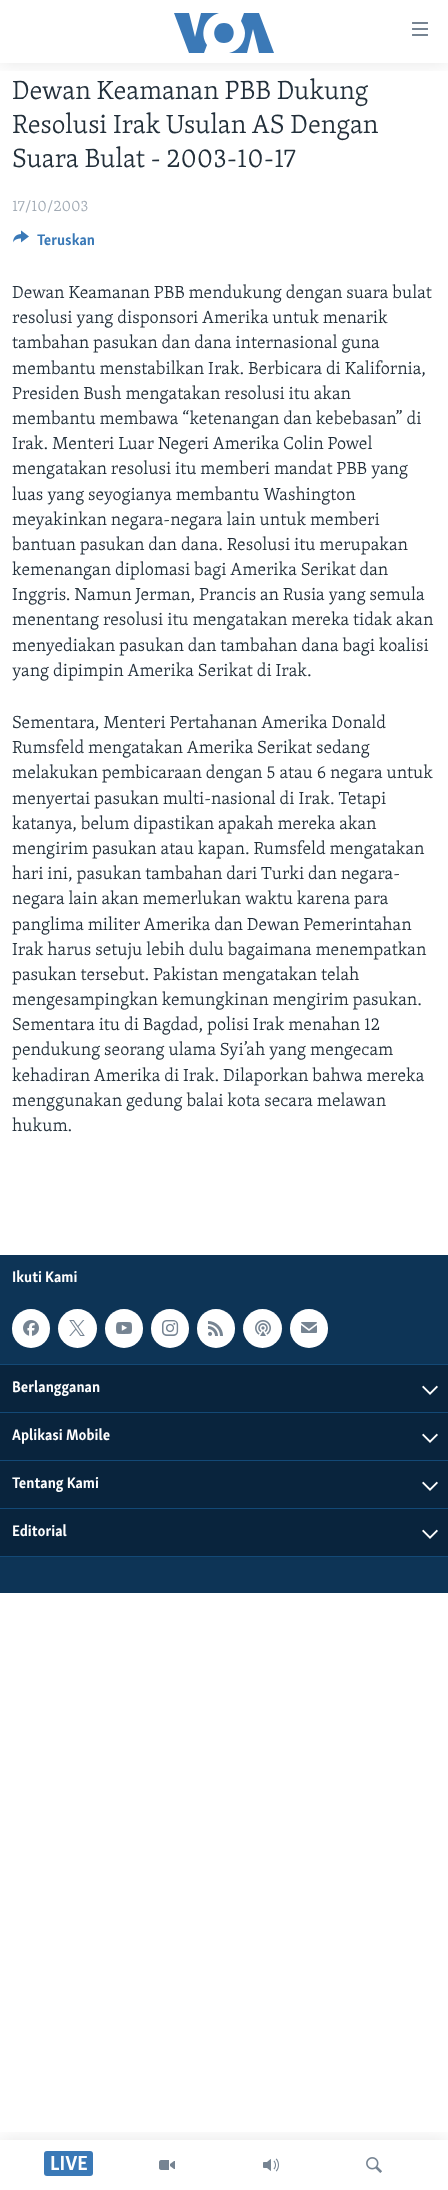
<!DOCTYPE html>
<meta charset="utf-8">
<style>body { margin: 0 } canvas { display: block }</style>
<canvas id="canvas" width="448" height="2190"></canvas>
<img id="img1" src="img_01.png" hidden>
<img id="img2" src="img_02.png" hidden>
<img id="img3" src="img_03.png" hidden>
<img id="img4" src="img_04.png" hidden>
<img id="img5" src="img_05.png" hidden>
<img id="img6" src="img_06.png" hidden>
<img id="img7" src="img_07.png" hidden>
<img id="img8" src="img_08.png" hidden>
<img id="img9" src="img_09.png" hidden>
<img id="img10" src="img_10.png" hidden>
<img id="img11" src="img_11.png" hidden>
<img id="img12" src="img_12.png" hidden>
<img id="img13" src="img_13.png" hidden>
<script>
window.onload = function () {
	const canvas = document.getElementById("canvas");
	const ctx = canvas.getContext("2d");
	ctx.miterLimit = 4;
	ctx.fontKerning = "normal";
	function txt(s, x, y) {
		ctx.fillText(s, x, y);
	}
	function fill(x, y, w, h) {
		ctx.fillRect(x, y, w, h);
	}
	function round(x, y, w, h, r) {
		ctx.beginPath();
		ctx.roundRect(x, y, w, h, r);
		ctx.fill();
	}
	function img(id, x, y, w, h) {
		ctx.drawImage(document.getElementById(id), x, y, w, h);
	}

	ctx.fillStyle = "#FFFFFF";
	fill(0, 0, 448, 2190);
	img("img1", 13, 230, 16, 13);
	ctx.fillStyle = "#0D3456";
	fill(0, 1255, 448, 338);
	ctx.fillStyle = "#134976";
	fill(0, 1556, 448, 1);
	ctx.fillStyle = "#FFFFFF";
	round(12, 1309, 38, 39, 19);
	img("img2", 23, 1320, 16, 16);
	ctx.beginPath();
	ctx.arc(77.5, 1328.5, 19.5, 0, Math.PI * 2);
	ctx.fill();
	img("img3", 69, 1320, 16, 16);
	round(105, 1309, 38, 39, 19);
	img("img4", 116, 1322, 16, 12);
	round(151, 1309, 38, 39, 19);
	img("img5", 162, 1320, 17, 16);
	round(197, 1309, 38, 39, 19);
	img("img6", 208, 1321, 15, 15);
	ctx.beginPath();
	ctx.arc(262.5, 1328.5, 19.5, 0, Math.PI * 2);
	ctx.fill();
	img("img7", 255, 1320, 16, 16);
	round(290, 1309, 38, 39, 19);
	img("img8", 301, 1322, 16, 11);
	ctx.fillStyle = "#134976";
	fill(0, 1364, 448, 1);
	ctx.fillStyle = "#09243D";
	fill(0, 1365, 448, 47);
	img("img9", 422, 1385, 16, 10);
	ctx.fillStyle = "#134976";
	fill(0, 1412, 448, 1);
	ctx.fillStyle = "#09243D";
	fill(0, 1413, 448, 47);
	img("img9", 422, 1433, 16, 10);
	ctx.fillStyle = "#134976";
	fill(0, 1460, 448, 1);
	ctx.fillStyle = "#09243D";
	fill(0, 1461, 448, 47);
	img("img9", 422, 1481, 16, 10);
	ctx.fillStyle = "#134976";
	fill(0, 1508, 448, 1);
	ctx.fillStyle = "#09243D";
	fill(0, 1509, 448, 47);
	img("img9", 422, 1529, 16, 10);
	ctx.save();
	ctx.beginPath();
	ctx.rect(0, 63, 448, 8);
	ctx.clip();
	ctx.fillStyle = "rgba(0, 0, 0, 0.1)";
	ctx.filter = "blur(10px)";
	ctx.beginPath();
	ctx.rect(0, 0, 448, 63);
	ctx.fill();
	ctx.filter = "none";
	ctx.restore();
	ctx.fillStyle = "#3B79B7";
	ctx.beginPath();
	ctx.moveTo(207, 45);
	ctx.lineTo(204, 53);
	ctx.lineTo(189, 53);
	ctx.lineTo(174, 13);
	ctx.lineTo(189, 13);
	ctx.lineTo(195, 37);
	ctx.lineTo(201, 13);
	ctx.lineTo(219, 13);
	ctx.bezierCurveTo(205, 17, 199, 33, 207, 45);
	ctx.closePath();
	ctx.moveTo(224, 23);
	ctx.bezierCurveTo(211, 23, 211, 43, 224, 43);
	ctx.bezierCurveTo(237, 43, 237, 23, 224, 23);
	ctx.closePath();
	ctx.moveTo(245, 33);
	ctx.bezierCurveTo(245, 43, 238, 51, 229, 53);
	ctx.lineTo(247, 53);
	ctx.lineTo(253, 29);
	ctx.lineTo(259, 53);
	ctx.lineTo(274, 53);
	ctx.lineTo(259, 13);
	ctx.lineTo(244, 13);
	ctx.lineTo(241, 21);
	ctx.bezierCurveTo(243, 25, 245, 29, 245, 33);
	ctx.closePath();
	ctx.fill();
	img("img10", 412, 22, 16, 14);
	ctx.save();
	ctx.beginPath();
	ctx.rect(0, 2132, 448, 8);
	ctx.clip();
	ctx.fillStyle = "rgba(0, 0, 0, 0.1)";
	ctx.filter = "blur(10px)";
	ctx.beginPath();
	ctx.rect(0, 2140, 448, 50);
	ctx.fill();
	ctx.filter = "none";
	ctx.restore();
	ctx.fillStyle = "#3A79B7";
	round(44, 2151, 49, 25, 3);
	img("img11", 159, 2160, 16, 10);
	img("img12", 263, 2158, 16, 14);
	img("img13", 366, 2157, 16, 16);
	ctx.font = "300 27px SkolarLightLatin";
	ctx.fillStyle = "#222F3A";
	txt("Dewan Keamanan PBB Dukung", 12, 99);
	txt("Resolusi Irak Usulan AS Dengan", 12, 133);
	txt("Suara Bulat - 2003-10-17", 12, 167);
	ctx.font = "300 15.75px SkolarLightLatin";
	ctx.fillStyle = "#A1AAB4";
	txt("17/10/2003", 12, 211);
	ctx.font = "bold 15.75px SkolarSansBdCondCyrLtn";
	ctx.fillStyle = "#3A79B7";
	txt("Teruskan", 37, 245);
	ctx.font = "300 18px SkolarLightLatin";
	ctx.fillStyle = "#222F3A";
	txt("Dewan Keamanan PBB mendukung dengan suara bulat", 12, 298);
	txt("resolusi yang disponsori Amerika untuk menarik", 12, 323);
	txt("tambahan pasukan dan dana internasional guna", 12, 348);
	txt("membantu menstabilkan Irak. Berbicara di Kalifornia,", 12, 374);
	txt("Presiden Bush mengatakan resolusi itu akan", 12, 399);
	txt("membantu membawa “ketenangan dan kebebasan” di", 12, 424);
	txt("Irak. Menteri Luar Negeri Amerika Colin Powel", 12, 449);
	txt("mengatakan resolusi itu memberi mandat PBB yang", 12, 474);
	txt("luas yang seyogianya membantu Washington", 12, 500);
	txt("meyakinkan negara-negara lain untuk memberi", 12, 525);
	txt("bantuan pasukan dan dana. Resolusi itu merupakan", 12, 550);
	txt("kemenangan diplomasi bagi Amerika Serikat dan", 12, 575);
	txt("Inggris. Namun Jerman, Prancis an Rusia yang semula", 12, 600);
	txt("menentang resolusi itu mengatakan mereka tidak akan", 12, 625);
	txt("menyediakan pasukan dan tambahan dana bagi koalisi", 12, 651);
	txt("yang dipimpin Amerika Serikat di Irak.", 12, 676);
	txt("Sementara, Menteri Pertahanan Amerika Donald", 12, 728);
	txt("Rumsfeld mengatakan Amerika Serikat sedang", 12, 753);
	txt("melakukan pembicaraan dengan 5 atau 6 negara untuk", 12, 778);
	txt("menyertai pasukan multi-nasional di Irak. Tetapi", 12, 804);
	txt("katanya, belum dipastikan apakah mereka akan", 12, 829);
	txt("mengirim pasukan atau kapan. Rumsfeld mengatakan", 12, 854);
	txt("hari ini, pasukan tambahan dari Turki dan negara-", 12, 879);
	txt("negara lain akan memerlukan waktu karena para", 12, 904);
	txt("panglima militer Amerika dan Dewan Pemerintahan", 12, 930);
	txt("Irak harus setuju lebih dulu bagaimana menempatkan", 12, 955);
	txt("pasukan tersebut. Pakistan mengatakan telah", 12, 980);
	txt("mengesampingkan kemungkinan mengirim pasukan.", 12, 1005);
	txt("Sementara itu di Bagdad, polisi Irak menahan 12", 12, 1030);
	txt("pendukung seorang ulama Syi’ah yang mengecam", 12, 1055);
	txt("kehadiran Amerika di Irak. Dilaporkan bahwa mereka", 12, 1081);
	txt("menggunakan gedung balai kota secara melawan", 12, 1106);
	txt("hukum.", 12, 1131);
	ctx.font = "bold 15.75px SkolarSansBdCondCyrLtn";
	ctx.fillStyle = "#FFFFFF";
	txt("Ikuti Kami", 12, 1282);
	txt("Berlangganan", 12, 1392);
	txt("Aplikasi Mobile", 12, 1440);
	txt("Tentang Kami", 12, 1488);
	txt("Editorial", 12, 1536);
	ctx.font = "bold 21px SkolarSansBdCondCyrLtn";
	txt("LIVE", 50, 2170);
};
</script>
